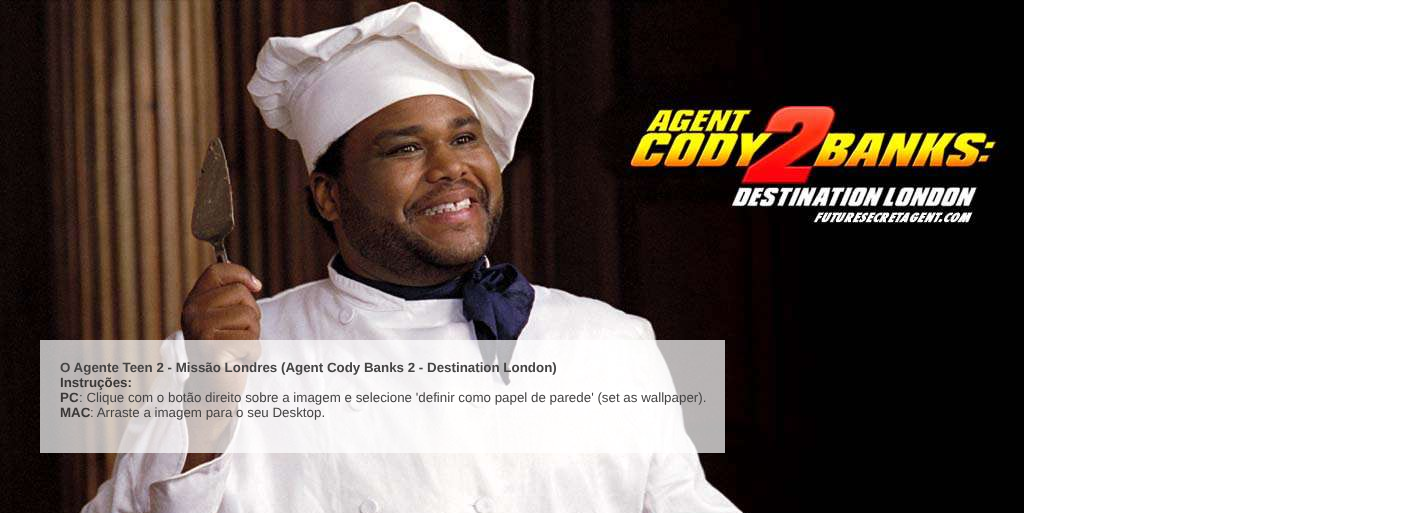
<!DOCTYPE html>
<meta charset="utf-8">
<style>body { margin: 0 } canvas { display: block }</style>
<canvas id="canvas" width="1407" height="513"></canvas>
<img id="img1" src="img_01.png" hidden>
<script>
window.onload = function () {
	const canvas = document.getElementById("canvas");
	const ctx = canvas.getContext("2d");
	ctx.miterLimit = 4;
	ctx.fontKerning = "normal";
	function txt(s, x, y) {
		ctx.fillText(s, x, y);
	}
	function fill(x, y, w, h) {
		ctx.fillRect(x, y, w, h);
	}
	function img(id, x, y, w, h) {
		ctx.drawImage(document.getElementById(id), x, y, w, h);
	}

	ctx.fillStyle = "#FFFFFF";
	fill(0, 0, 1407, 513);
	img("img1", 0, 0, 1024, 513);
	ctx.fillStyle = "rgba(255, 255, 255, 0.7)";
	fill(40, 340, 685, 113);
	ctx.font = "bold 13.35px Liberation Sans";
	ctx.fillStyle = "#454444";
	txt("O Agente Teen 2 - Missão Londres (Agent Cody Banks 2 - Destination London)", 60, 372);
	ctx.fillStyle = "#3B3837";
	txt("Instruções:", 60, 387);
	txt("PC", 60, 402);
	ctx.font = "13.35px Liberation Sans";
	ctx.fillStyle = "#454444";
	txt(": Clique com o botão direito sobre a imagem e selecione 'definir como papel de parede' (set as wallpaper).", 79, 402);
	ctx.font = "bold 13.35px Liberation Sans";
	ctx.fillStyle = "#3B3837";
	txt("MAC", 60, 417);
	ctx.font = "13.35px Liberation Sans";
	ctx.fillStyle = "#454444";
	txt(": Arraste a imagem para o seu Desktop.", 90, 417);
};
</script>
